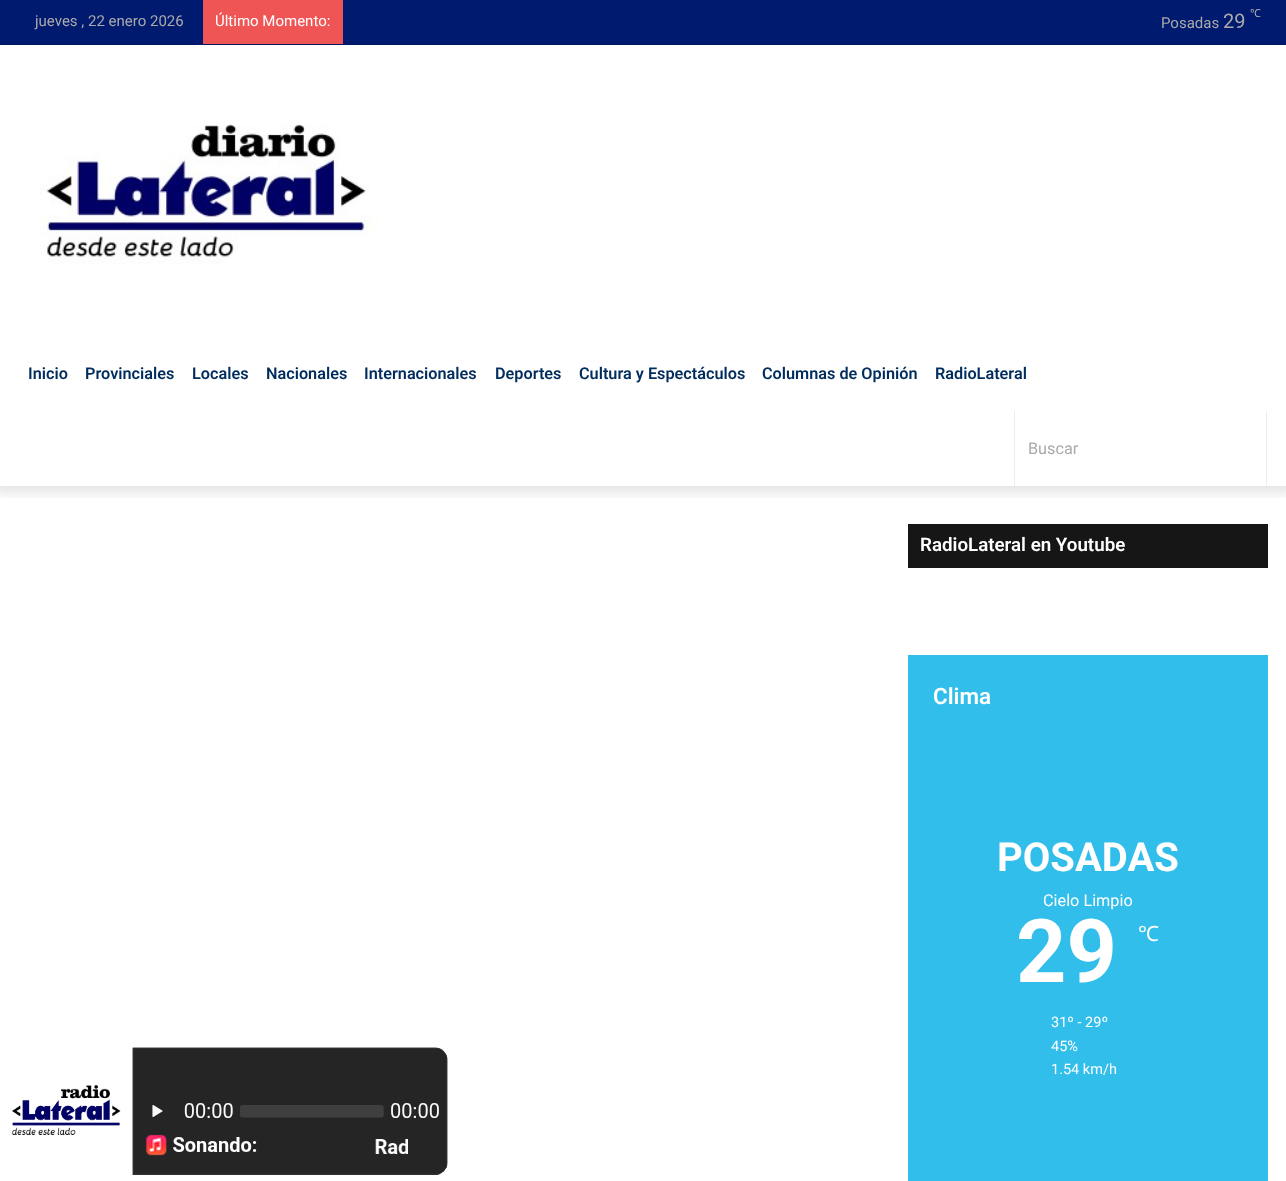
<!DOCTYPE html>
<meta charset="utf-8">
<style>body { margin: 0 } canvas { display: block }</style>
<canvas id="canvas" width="1286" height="1181"></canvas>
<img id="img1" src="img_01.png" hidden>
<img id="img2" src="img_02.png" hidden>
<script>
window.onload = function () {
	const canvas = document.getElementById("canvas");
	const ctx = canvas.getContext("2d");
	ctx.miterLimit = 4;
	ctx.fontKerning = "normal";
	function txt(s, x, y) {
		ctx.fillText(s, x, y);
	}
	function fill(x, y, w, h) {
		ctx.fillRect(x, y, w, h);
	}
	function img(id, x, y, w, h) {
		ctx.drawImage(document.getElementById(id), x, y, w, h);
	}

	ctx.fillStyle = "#FFFFFF";
	fill(0, 0, 1286, 1181);
	ctx.save();
	ctx.beginPath();
	ctx.rect(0, 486, 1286, 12);
	ctx.clip();
	ctx.fillStyle = "rgba(0, 0, 0, 0.1)";
	ctx.filter = "blur(6px)";
	ctx.beginPath();
	ctx.rect(-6, -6, 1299, 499);
	ctx.fill();
	ctx.filter = "none";
	ctx.restore();
	ctx.fillStyle = "#001A70";
	fill(0, 0, 1286, 44);
	ctx.fillStyle = "#001765";
	fill(0, 44, 1286, 1);
	ctx.fillStyle = "#F05555";
	fill(203, 0, 140, 44);
	img("img1", 39, 124, 340, 141);
	ctx.fillStyle = "#EDEDED";
	fill(1266, 411, 1, 75);
	fill(1014, 411, 1, 75);
	ctx.fillStyle = "#161616";
	fill(908, 524, 360, 44);
	ctx.fillStyle = "#32BEEB";
	fill(908, 655, 360, 526);
	img("img2", 12, 1047, 436, 128);
	ctx.font = "15px Roboto";
	ctx.fillStyle = "#AAAAAA";
	txt("jueves , 22 enero 2026", 35, 26);
	ctx.fillStyle = "#FFFFFF";
	txt("Último Momento:", 215, 26);
	ctx.fillStyle = "#AAAAAA";
	txt("Posadas", 1161, 28);
	ctx.font = "20px Roboto";
	txt("29", 1223, 28);
	ctx.font = "11px Noto Sans";
	txt("℃", 1250, 17);
	ctx.font = "600 16.25px Roboto";
	ctx.fillStyle = "#002C5E";
	txt("Inicio", 28, 379);
	txt("Provinciales", 85, 379);
	txt("Locales", 192, 379);
	txt("Nacionales", 266, 379);
	txt("Internacionales", 364, 379);
	txt("Deportes", 495, 379);
	txt("Cultura y Espectáculos", 579, 379);
	txt("Columnas de Opinión", 762, 379);
	txt("RadioLateral", 935, 379);
	ctx.font = "16.25px Roboto";
	ctx.fillStyle = "#AAAAAA";
	txt("Buscar", 1028, 454);
	ctx.font = "600 18.75px Roboto";
	ctx.fillStyle = "#FFFFFF";
	txt("RadioLateral en Youtube", 920, 551);
	ctx.font = "600 22.5px Roboto";
	txt("Clima", 933, 704);
	ctx.font = "bold 40px Roboto";
	txt("POSADAS", 997, 871);
	ctx.font = "16.25px Roboto";
	txt("Cielo Limpio", 1043, 906);
	ctx.font = "bold 88px Roboto";
	txt("29", 1016, 982);
	ctx.font = "21px Noto Sans";
	txt("℃", 1138, 941);
	ctx.font = "14.5px Roboto";
	txt("31º - 29º", 1051, 1027);
	txt("45%", 1051, 1051);
	txt("1.54 km/h", 1051, 1074);
};
</script>
